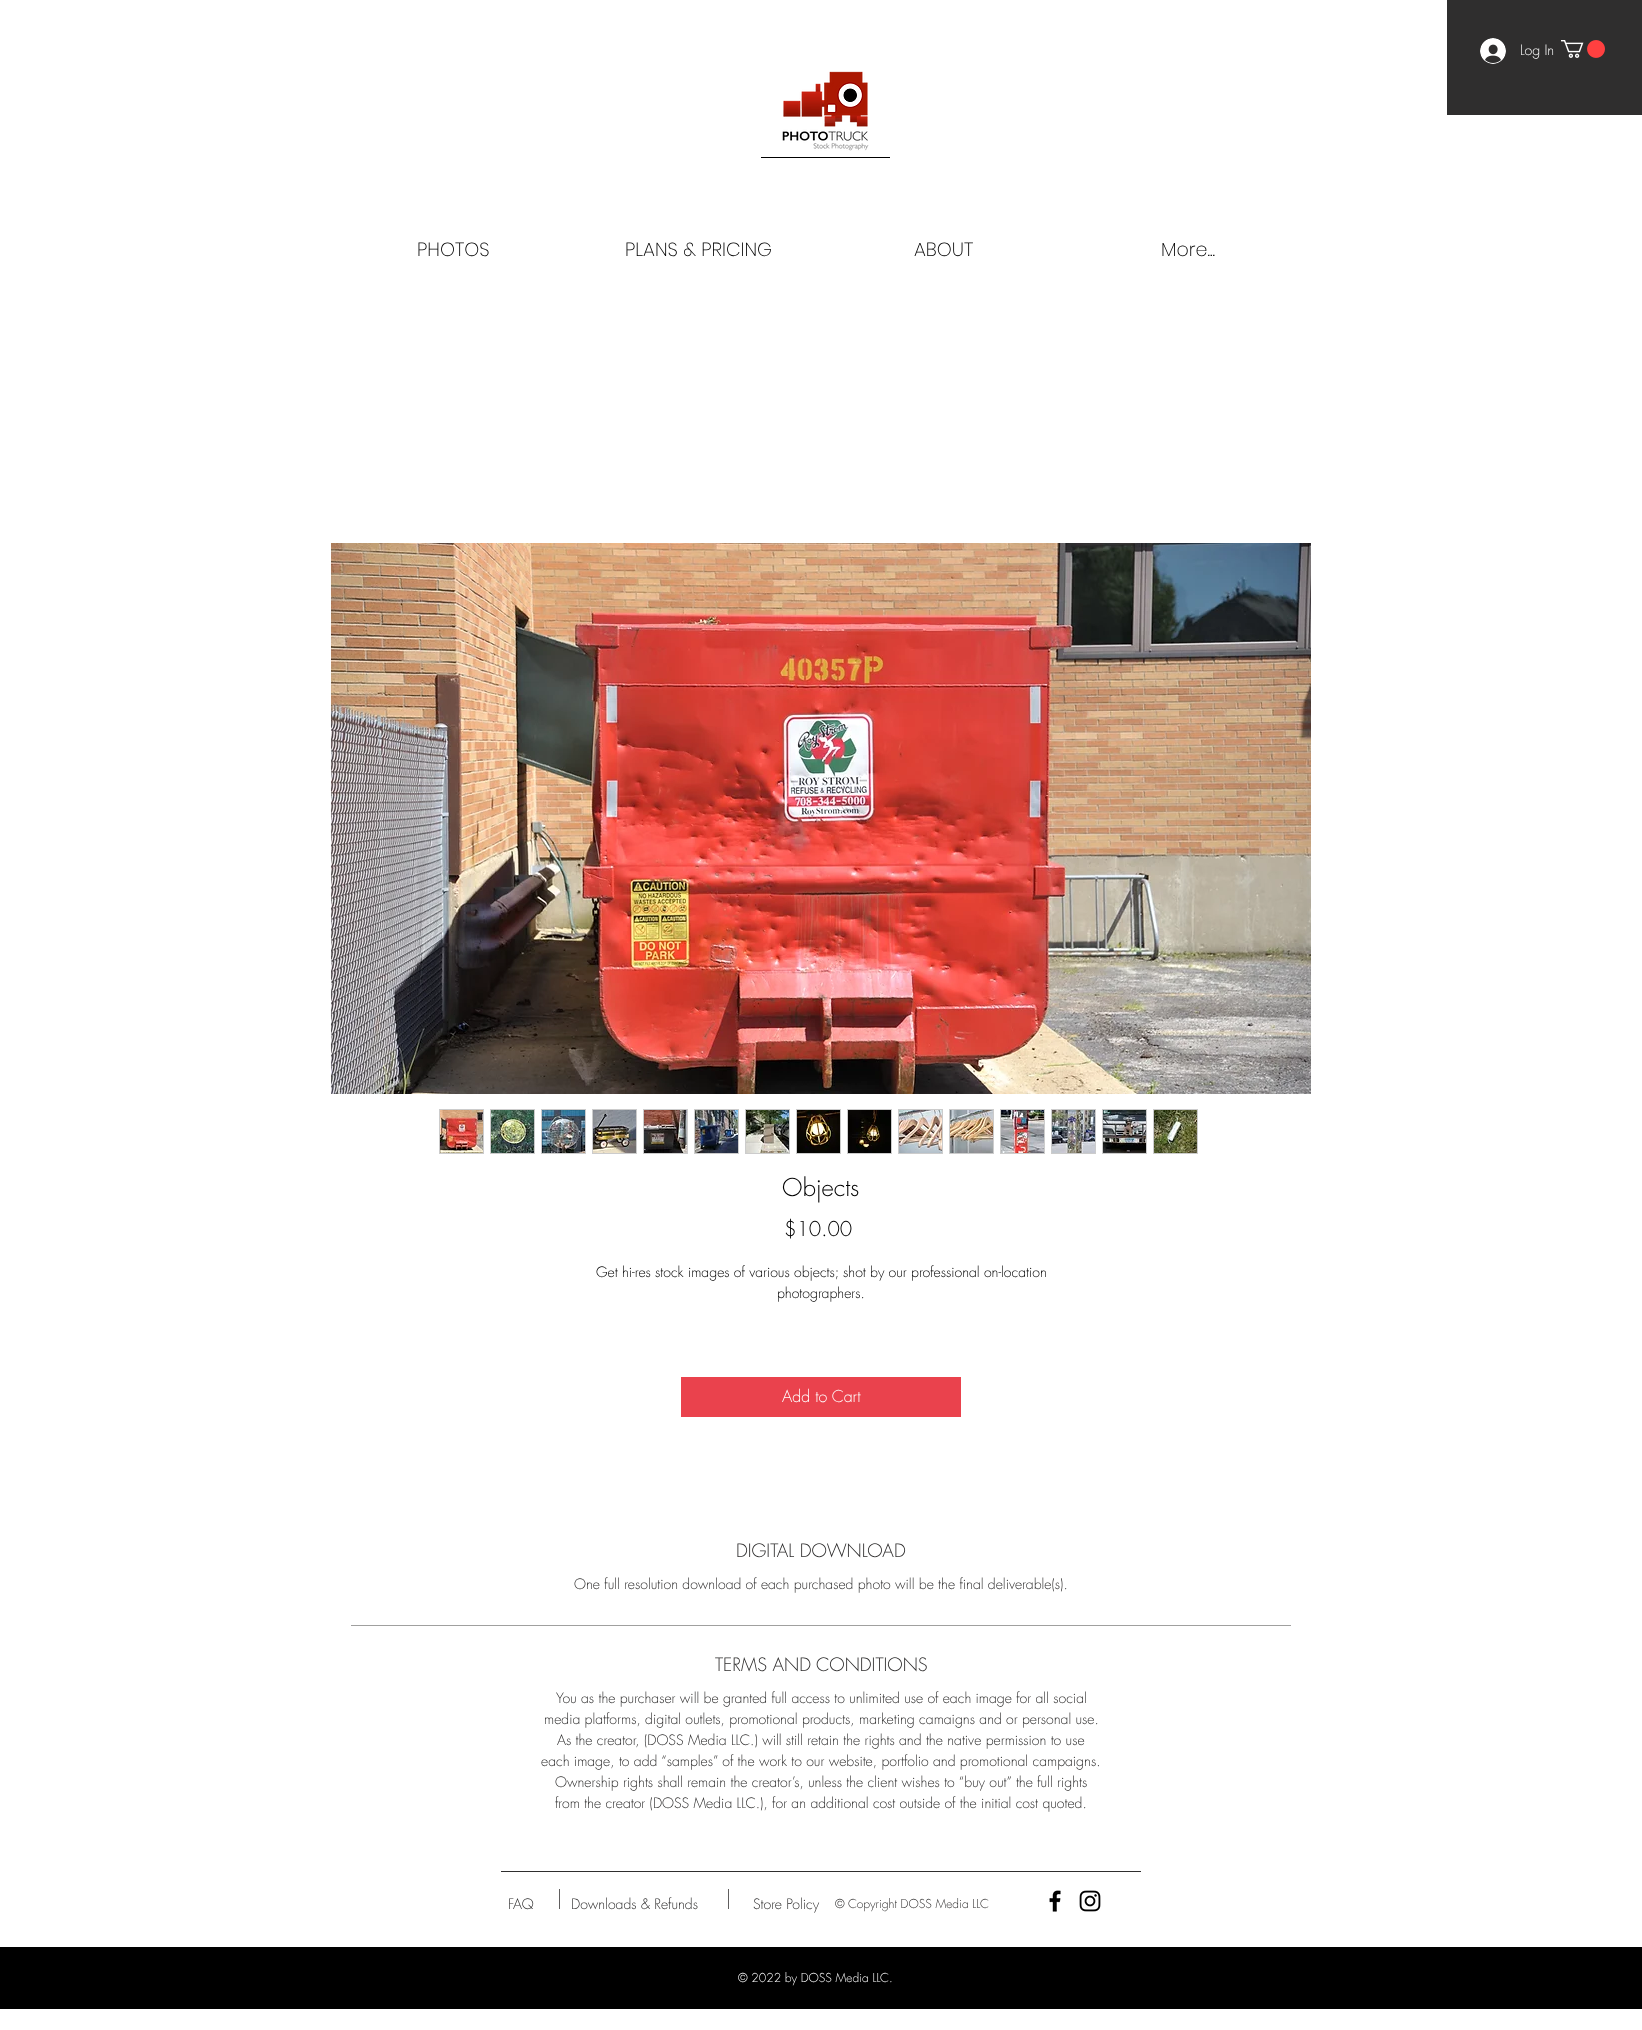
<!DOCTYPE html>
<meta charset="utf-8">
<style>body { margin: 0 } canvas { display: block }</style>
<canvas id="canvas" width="1642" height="2030"></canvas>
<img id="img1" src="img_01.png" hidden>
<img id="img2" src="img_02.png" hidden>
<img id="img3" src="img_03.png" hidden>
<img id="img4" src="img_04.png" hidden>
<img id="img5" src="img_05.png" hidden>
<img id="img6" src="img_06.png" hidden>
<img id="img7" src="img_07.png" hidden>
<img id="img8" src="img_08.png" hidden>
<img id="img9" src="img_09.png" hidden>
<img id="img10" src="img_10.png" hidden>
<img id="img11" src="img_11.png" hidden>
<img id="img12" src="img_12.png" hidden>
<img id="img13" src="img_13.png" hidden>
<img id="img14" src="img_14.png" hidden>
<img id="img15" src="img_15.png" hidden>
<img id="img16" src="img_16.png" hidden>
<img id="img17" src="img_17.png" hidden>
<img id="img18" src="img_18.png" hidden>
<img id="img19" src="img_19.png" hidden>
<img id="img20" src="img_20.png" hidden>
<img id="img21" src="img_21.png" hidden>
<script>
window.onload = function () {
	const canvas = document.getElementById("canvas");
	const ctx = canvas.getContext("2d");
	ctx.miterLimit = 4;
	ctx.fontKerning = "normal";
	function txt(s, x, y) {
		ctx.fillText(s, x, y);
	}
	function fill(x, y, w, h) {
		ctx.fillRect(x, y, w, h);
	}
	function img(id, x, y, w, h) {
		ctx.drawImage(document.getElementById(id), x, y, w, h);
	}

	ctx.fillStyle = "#FFFFFF";
	fill(0, 0, 1642, 2030);
	ctx.fillStyle = "#2F2E2E";
	fill(1447, 0, 195, 115);
	img("img1", 1480, 38, 26, 26);
	img("img2", 1561, 40, 44, 18);
	img("img3", 782, 71, 87, 80);
	ctx.fillStyle = "#000000";
	fill(761, 157, 129, 1);
	img("img4", 331, 543, 980, 551);
	ctx.fillStyle = "#CCCCCC";
	fill(439, 1109, 45, 45);
	img("img5", 440, 1110, 43, 43);
	fill(490, 1109, 45, 45);
	img("img6", 491, 1110, 43, 43);
	fill(541, 1109, 45, 45);
	img("img7", 542, 1110, 43, 43);
	fill(592, 1109, 45, 45);
	img("img8", 593, 1110, 43, 43);
	fill(643, 1109, 45, 45);
	img("img9", 644, 1110, 43, 43);
	fill(694, 1109, 45, 45);
	img("img10", 695, 1110, 43, 43);
	fill(745, 1109, 45, 45);
	img("img11", 746, 1110, 43, 43);
	fill(796, 1109, 45, 45);
	img("img12", 797, 1110, 43, 43);
	fill(847, 1109, 45, 45);
	img("img13", 848, 1110, 43, 43);
	fill(898, 1109, 45, 45);
	img("img14", 899, 1110, 43, 43);
	fill(949, 1109, 45, 45);
	img("img15", 950, 1110, 43, 43);
	fill(1000, 1109, 45, 45);
	img("img16", 1001, 1110, 43, 43);
	fill(1051, 1109, 45, 45);
	img("img17", 1052, 1110, 43, 43);
	fill(1102, 1109, 45, 45);
	img("img18", 1103, 1110, 43, 43);
	fill(1153, 1109, 45, 45);
	img("img19", 1154, 1110, 43, 43);
	ctx.fillStyle = "#EA424D";
	fill(681, 1377, 280, 40);
	ctx.fillStyle = "#A0A09F";
	fill(351, 1625, 940, 1);
	ctx.fillStyle = "#2F2E2E";
	fill(501, 1871, 640, 1);
	ctx.fillStyle = "#605E5E";
	fill(559, 1889, 1, 20);
	fill(728, 1889, 1, 20);
	img("img20", 1049, 1890, 12, 22);
	img("img21", 1079, 1890, 22, 22);
	ctx.fillStyle = "#000000";
	fill(0, 1947, 1642, 62);
	ctx.font = "300 14px futura";
	ctx.fillStyle = "#FFFFFF";
	txt("Log In", 1520, 55);
	ctx.font = "200 19px Poppins";
	ctx.fillStyle = "#000000";
	txt("PHOTOS", 417, 256);
	txt("PLANS & PRICING", 625, 256);
	txt("ABOUT", 914, 256);
	txt("More...", 1161, 256);
	ctx.font = "300 24px futura";
	txt("Objects", 782, 1196);
	ctx.font = "300 20px futura";
	txt("$10.00", 784, 1236);
	ctx.font = "300 14px futura";
	txt("Get hi-res stock images of various objects; shot by our professional on-location", 596, 1277);
	txt("photographers.", 777, 1298);
	ctx.font = "300 16px futura";
	ctx.fillStyle = "#FFFFFF";
	txt("Add to Cart", 782, 1402);
	ctx.font = "300 18px futura";
	ctx.fillStyle = "#2F2E2E";
	txt("DIGITAL DOWNLOAD", 736, 1557);
	ctx.font = "300 14px futura";
	txt("One full resolution download of each purchased photo will be the final deliverable(s).", 574, 1589);
	ctx.font = "300 18px futura";
	txt("TERMS AND CONDITIONS", 715, 1671);
	ctx.font = "300 14px futura";
	txt("You as the purchaser will be granted full access to unlimited use of each image for all social", 556, 1703);
	txt("media platforms, digital outlets, promotional products, marketing camaigns and or personal use.", 544, 1724);
	txt("As the creator, (DOSS Media LLC.) will still retain the rights and the native permission to use", 557, 1745);
	txt("each image, to add “samples” of the work to our website, portfolio and promotional campaigns.", 541, 1766);
	txt("Ownership rights shall remain the creator’s, unless the client wishes to “buy out” the full rights", 555, 1787);
	txt("from the creator (DOSS Media LLC.), for an additional cost outside of the initial cost quoted.", 555, 1808);
	txt("FAQ", 508, 1909);
	txt("Downloads & Refunds", 571, 1909);
	txt("Store Policy", 753, 1909);
	ctx.font = "300 12px futura";
	txt("© Copyright DOSS Media LLC", 835, 1908);
	ctx.fillStyle = "#FFFFFF";
	txt("© 2022 by DOSS Media LLC.", 738, 1982);
};
</script>
